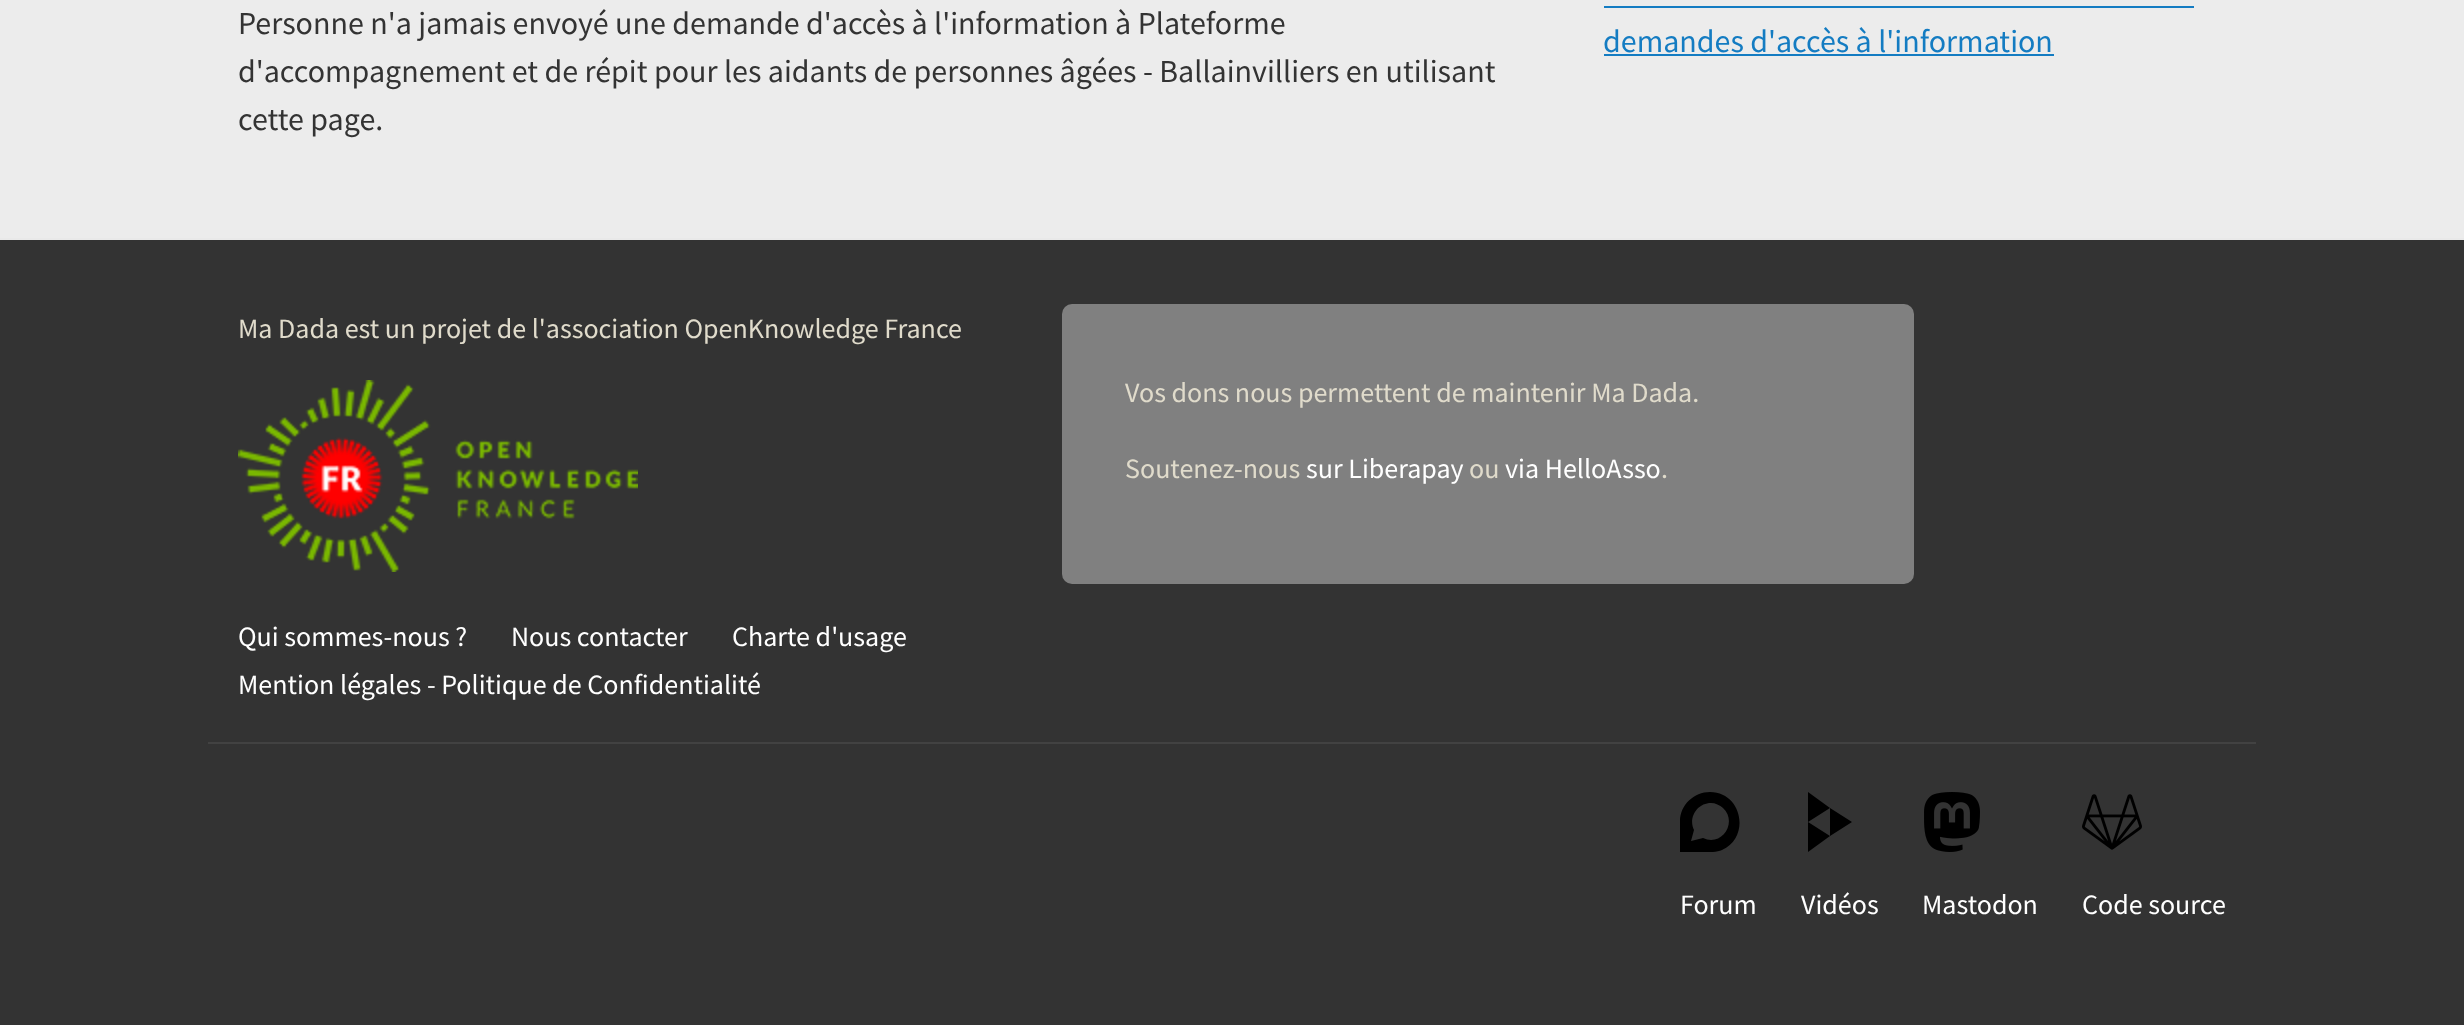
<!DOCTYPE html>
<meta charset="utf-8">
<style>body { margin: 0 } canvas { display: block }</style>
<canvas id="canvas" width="2464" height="1025"></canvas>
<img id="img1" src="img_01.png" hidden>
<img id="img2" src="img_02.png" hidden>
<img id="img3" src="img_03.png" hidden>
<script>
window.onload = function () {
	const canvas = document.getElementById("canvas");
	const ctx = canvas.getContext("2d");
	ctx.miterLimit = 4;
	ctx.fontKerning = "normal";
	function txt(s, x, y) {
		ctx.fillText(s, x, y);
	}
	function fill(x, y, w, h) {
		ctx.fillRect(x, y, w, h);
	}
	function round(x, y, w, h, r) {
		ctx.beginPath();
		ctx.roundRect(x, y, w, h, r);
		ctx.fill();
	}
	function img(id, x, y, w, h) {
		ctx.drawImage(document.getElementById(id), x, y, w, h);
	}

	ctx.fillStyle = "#ECECEC";
	fill(0, 0, 2464, 1025);
	ctx.fillStyle = "#147CC2";
	fill(1604, 6, 590, 2);
	fill(1604, 54, 450, 2);
	ctx.fillStyle = "#333333";
	fill(0, 240, 2464, 785);
	ctx.fillStyle = "#E9E9E9";
	fill(0, 238, 2464, 2);
	img("img1", 238, 380, 400, 192);
	ctx.fillStyle = "#808080";
	round(1062, 304, 852, 280, 10);
	ctx.fillStyle = "#424242";
	fill(208, 742, 2048, 2);
	ctx.save();
	ctx.beginPath();
	ctx.rect(1680, 792, 60, 60);
	ctx.clip();
	ctx.fillStyle = "#000000";
	ctx.beginPath();
	ctx.moveTo(1710, 792);
	ctx.bezierCurveTo(1742, 792, 1751, 837, 1722, 850);
	ctx.bezierCurveTo(1712, 854, 1691, 852, 1680, 852);
	ctx.lineTo(1680, 821);
	ctx.bezierCurveTo(1680, 805, 1694, 792, 1710, 792);
	ctx.closePath();
	ctx.moveTo(1711, 803);
	ctx.bezierCurveTo(1697, 803, 1688, 818, 1694, 830);
	ctx.lineTo(1691, 841);
	ctx.lineTo(1703, 838);
	ctx.bezierCurveTo(1722, 847, 1738, 822, 1723, 808);
	ctx.bezierCurveTo(1720, 805, 1715, 803, 1711, 803);
	ctx.closePath();
	ctx.fill();
	ctx.restore();
	ctx.fillStyle = "#000000";
	ctx.beginPath();
	ctx.moveTo(1830, 808);
	ctx.lineTo(1830, 836);
	ctx.lineTo(1852, 822);
	ctx.moveTo(1808, 822);
	ctx.lineTo(1808, 852);
	ctx.lineTo(1830, 836);
	ctx.moveTo(1808, 792);
	ctx.lineTo(1808, 822);
	ctx.lineTo(1830, 808);
	ctx.fill();
	img("img2", 1924, 792, 56, 60);
	img("img3", 2082, 794, 60, 56);
	ctx.font = "32px Source Sans Pro";
	ctx.fillStyle = "#333333";
	txt("Personne n'a jamais envoyé une demande d'accès à l'information à Plateforme", 238, 34);
	txt("d'accompagnement et de répit pour les aidants de personnes âgées - Ballainvilliers en utilisant", 238, 82);
	txt("cette page.", 238, 130);
	ctx.fillStyle = "#147CC2";
	txt("demandes d'accès à l'information", 1603, 52);
	ctx.font = "28px Source Sans Pro";
	ctx.fillStyle = "#E0DBCB";
	txt("Ma Dada est un projet de l'association OpenKnowledge France", 238, 338);
	ctx.fillStyle = "#FFFFFF";
	txt("Qui sommes-nous ?", 238, 646);
	txt("Nous contacter", 511, 646);
	txt("Charte d'usage", 732, 646);
	txt("Mention légales - Politique de Confidentialité", 238, 694);
	ctx.fillStyle = "#E0DBCB";
	txt("Vos dons nous permettent de maintenir Ma Dada.", 1125, 402);
	txt("Soutenez-nous", 1125, 478);
	ctx.fillStyle = "#FFFFFF";
	txt("sur Liberapay", 1306, 478);
	ctx.fillStyle = "#E0DBCB";
	txt("ou", 1469, 478);
	ctx.fillStyle = "#FFFFFF";
	txt("via HelloAsso", 1505, 478);
	ctx.fillStyle = "#E0DBCB";
	txt(".", 1661, 478);
	ctx.fillStyle = "#FFFFFF";
	txt("Forum", 1680, 914);
	txt("Vidéos", 1801, 914);
	txt("Mastodon", 1922, 914);
	txt("Code source", 2082, 914);
};
</script>
